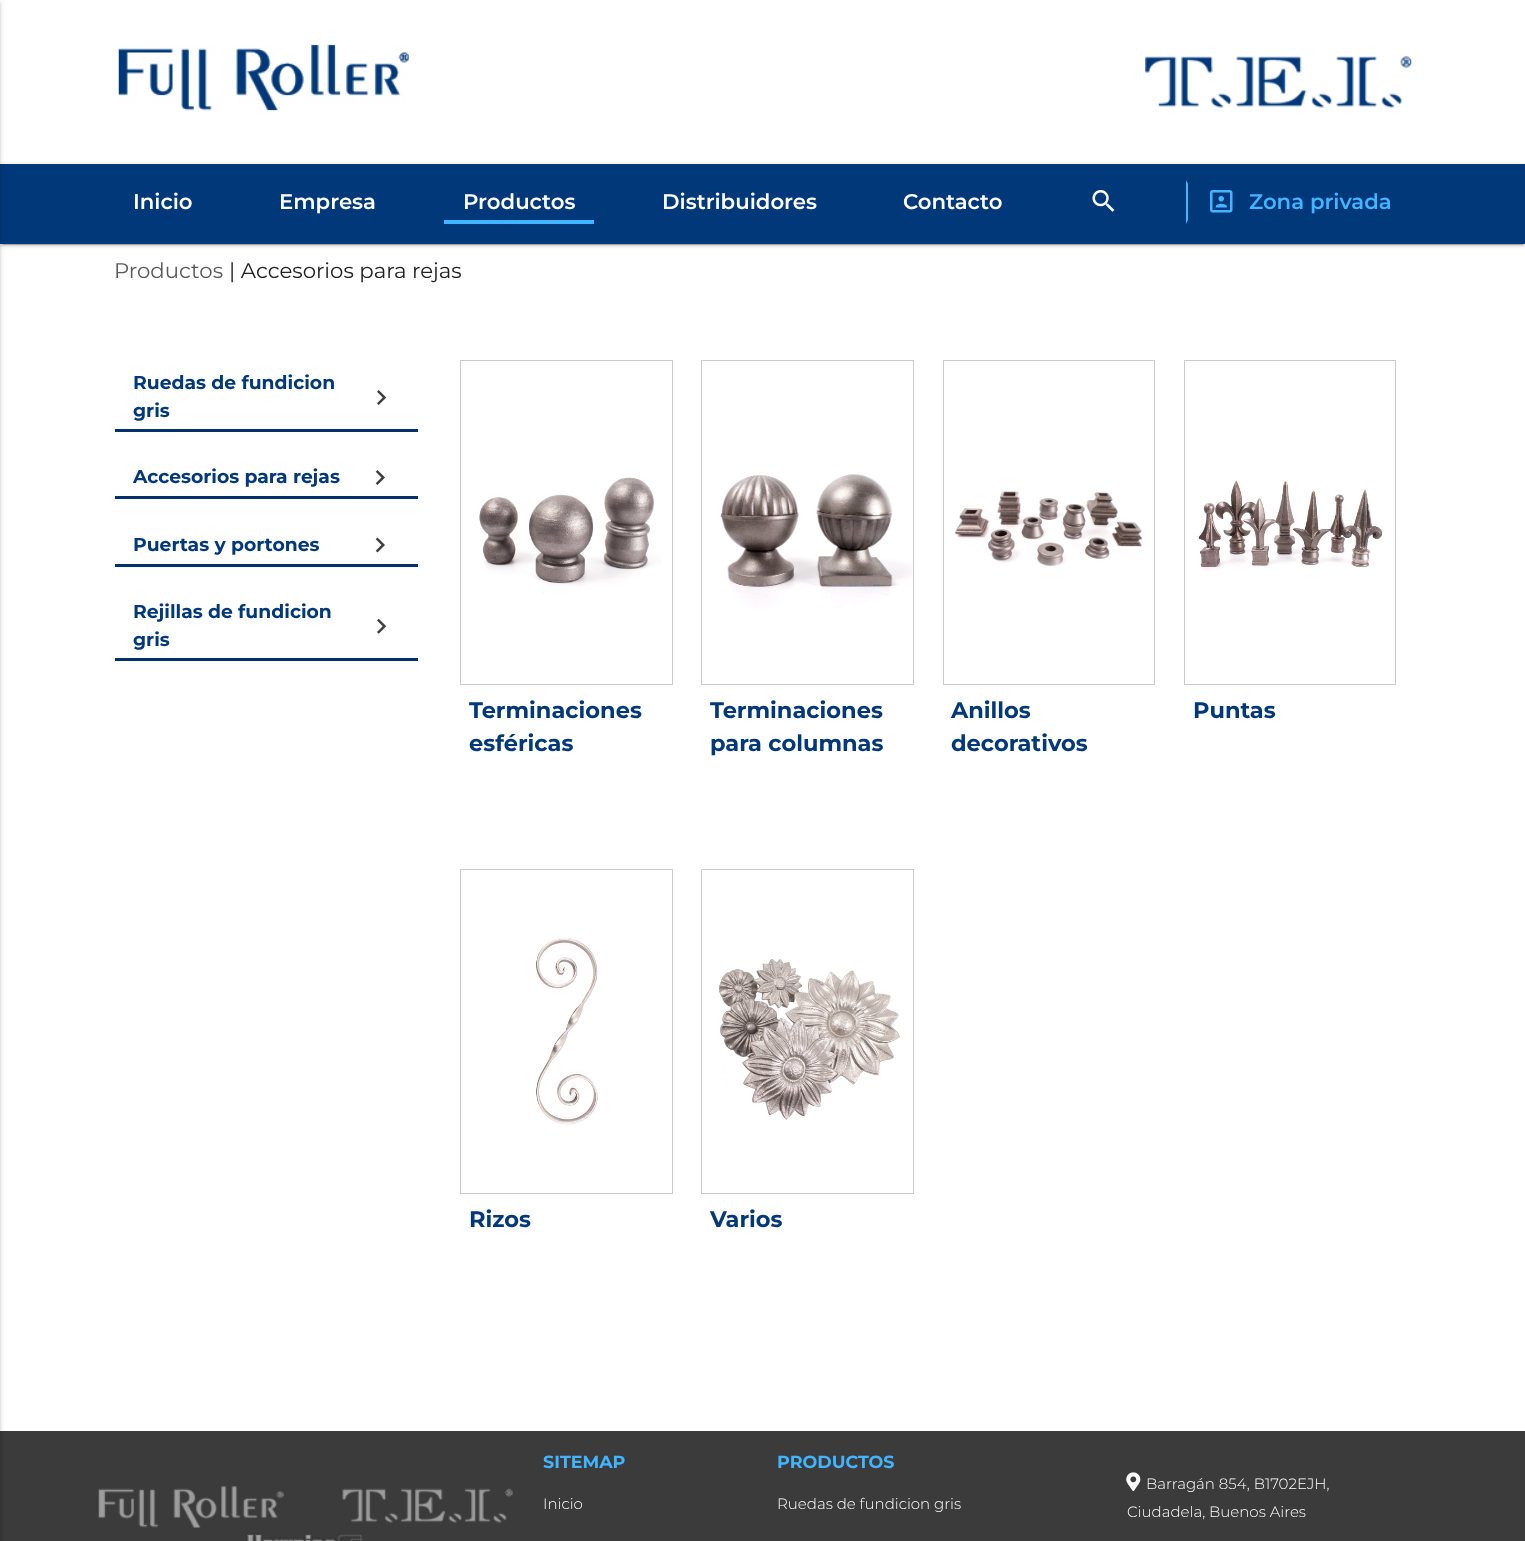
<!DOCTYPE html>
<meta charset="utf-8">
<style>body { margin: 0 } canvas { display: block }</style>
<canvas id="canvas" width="1525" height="1541"></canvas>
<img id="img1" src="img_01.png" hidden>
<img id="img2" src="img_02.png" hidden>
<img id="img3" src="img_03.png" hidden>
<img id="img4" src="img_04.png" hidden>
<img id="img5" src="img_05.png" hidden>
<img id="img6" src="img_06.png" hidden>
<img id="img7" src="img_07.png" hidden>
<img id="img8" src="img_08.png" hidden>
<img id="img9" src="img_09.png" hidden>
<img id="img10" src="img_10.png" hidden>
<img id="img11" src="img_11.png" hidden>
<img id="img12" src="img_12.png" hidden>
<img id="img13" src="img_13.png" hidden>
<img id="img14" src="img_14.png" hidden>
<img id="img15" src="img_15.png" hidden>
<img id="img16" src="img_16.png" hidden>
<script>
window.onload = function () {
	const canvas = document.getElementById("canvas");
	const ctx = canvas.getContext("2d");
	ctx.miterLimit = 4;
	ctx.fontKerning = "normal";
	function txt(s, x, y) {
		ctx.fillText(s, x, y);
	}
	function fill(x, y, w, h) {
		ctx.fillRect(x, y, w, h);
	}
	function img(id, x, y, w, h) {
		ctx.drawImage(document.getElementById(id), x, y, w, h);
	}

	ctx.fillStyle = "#FFFFFF";
	fill(0, 0, 1525, 1541);
	img("img1", 118, 44, 291, 67);
	img("img2", 1145, 56, 267, 52);
	ctx.fillStyle = "rgba(0, 0, 0, 0.2)";
	ctx.filter = "blur(0.5px)";
	ctx.beginPath();
	ctx.rect(3, 170, 1520, 75);
	ctx.fill();
	ctx.filter = "none";
	ctx.fillStyle = "rgba(0, 0, 0, 0.12)";
	ctx.filter = "blur(3px)";
	ctx.beginPath();
	ctx.rect(0, 165, 1525, 80);
	ctx.fill();
	ctx.filter = "none";
	ctx.fillStyle = "rgba(0, 0, 0, 0.14)";
	ctx.filter = "blur(1px)";
	ctx.beginPath();
	ctx.rect(0, 166, 1525, 80);
	ctx.fill();
	ctx.filter = "none";
	ctx.fillStyle = "#003879";
	fill(0, 164, 1525, 80);
	ctx.fillStyle = "#3B3B3B";
	fill(0, 1431, 1525, 110);
	ctx.fillStyle = "rgba(0, 0, 0, 0.12)";
	ctx.filter = "blur(3px)";
	ctx.beginPath();
	ctx.rect(-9, 1, 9, 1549);
	ctx.fill();
	ctx.filter = "none";
	ctx.fillStyle = "rgba(0, 0, 0, 0.14)";
	ctx.filter = "blur(1px)";
	ctx.beginPath();
	ctx.rect(-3, 3, 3, 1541);
	ctx.fill();
	ctx.filter = "none";
	ctx.fillStyle = "#43B4FF";
	fill(444, 220, 150, 4);
	img("img3", 1092, 190, 23, 22);
	ctx.beginPath();
	ctx.moveTo(1186, 224);
	ctx.lineTo(1186, 180);
	ctx.lineTo(1188, 184);
	ctx.lineTo(1188, 220);
	ctx.closePath();
	ctx.fill();
	img("img4", 1210, 190, 23, 23);
	ctx.fillStyle = "#02316F";
	fill(115, 429, 303, 3);
	img("img5", 377, 390, 10, 15);
	fill(115, 496, 303, 3);
	img("img6", 375, 470, 10, 15);
	fill(115, 564, 303, 3);
	img("img7", 375, 537, 10, 16);
	fill(115, 658, 303, 3);
	img("img8", 377, 618, 10, 16);
	img("img9", 479, 477, 183, 117);
	ctx.strokeStyle = "#CCCCCC";
	ctx.strokeRect(460.5, 360.5, 212, 324);
	img("img10", 720, 474, 193, 134);
	ctx.strokeRect(701.5, 360.5, 212, 324);
	img("img11", 954, 491, 188, 76);
	ctx.strokeRect(943.5, 360.5, 211, 324);
	img("img12", 1198, 480, 185, 91);
	ctx.strokeRect(1184.5, 360.5, 211, 324);
	img("img13", 536, 938, 62, 187);
	ctx.strokeRect(460.5, 869.5, 212, 324);
	img("img14", 718, 959, 182, 161);
	ctx.strokeRect(701.5, 869.5, 212, 324);
	img("img15", 98, 1486, 415, 55);
	img("img16", 1126, 1472, 15, 20);
	ctx.font = "600 21.25px Montserrat";
	ctx.fillStyle = "#FFFFFF";
	txt("Inicio", 133, 209);
	txt("Empresa", 279, 209);
	txt("Productos", 463, 209);
	txt("Distribuidores", 662, 209);
	txt("Contacto", 903, 209);
	ctx.fillStyle = "#43B4FF";
	txt("Zona privada", 1249, 209);
	ctx.font = "21.25px Montserrat";
	ctx.fillStyle = "#5A5A5A";
	txt("Productos", 114, 278);
	ctx.fillStyle = "#212121";
	txt("| Accesorios para rejas", 229, 278);
	ctx.font = "bold 18.75px Montserrat";
	ctx.fillStyle = "#003879";
	txt("Ruedas de fundicion", 133, 389);
	txt("gris", 133, 417);
	txt("Accesorios para rejas", 133, 483);
	txt("Puertas y portones", 133, 551);
	txt("Rejillas de fundicion", 133, 618);
	txt("gris", 133, 646);
	ctx.font = "bold 22.5px Montserrat";
	txt("Terminaciones", 469, 718);
	txt("esféricas", 469, 751);
	txt("Terminaciones", 710, 718);
	txt("para columnas", 710, 751);
	txt("Anillos", 951, 718);
	txt("decorativos", 951, 751);
	txt("Puntas", 1193, 718);
	txt("Rizos", 469, 1227);
	txt("Varios", 710, 1227);
	ctx.font = "bold 17.5px Montserrat";
	ctx.fillStyle = "#43B4FF";
	txt("SITEMAP", 543, 1468);
	ctx.font = "300 15px Montserrat";
	ctx.fillStyle = "#FFFFFF";
	txt("Inicio", 543, 1509);
	ctx.font = "bold 17.5px Montserrat";
	ctx.fillStyle = "#43B4FF";
	txt("PRODUCTOS", 777, 1468);
	ctx.font = "300 15px Montserrat";
	ctx.fillStyle = "#FFFFFF";
	txt("Ruedas de fundicion gris", 777, 1509);
	txt("Barragán 854, B1702EJH,", 1146, 1489);
	txt("Ciudadela, Buenos Aires", 1127, 1517);
};
</script>
